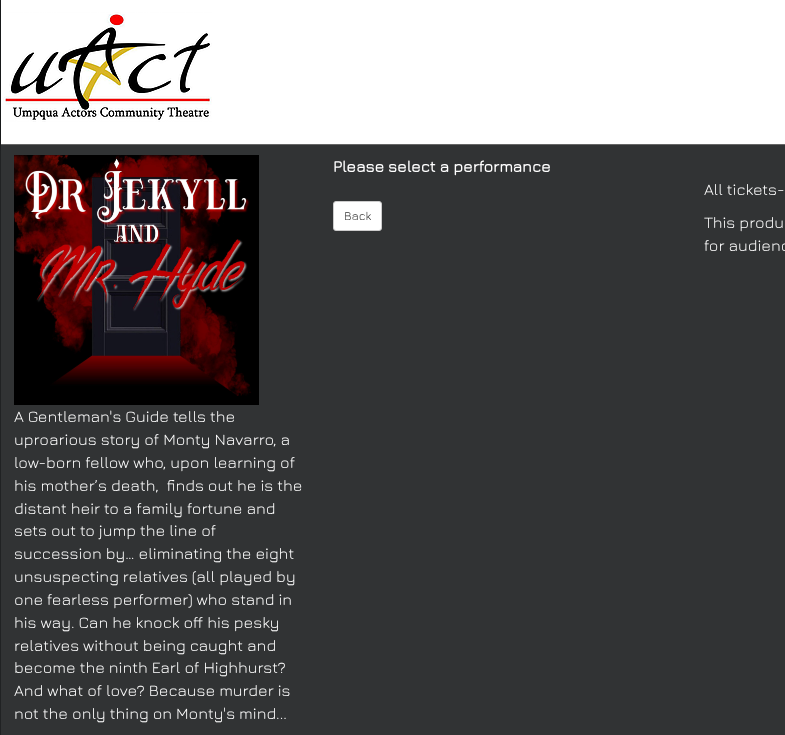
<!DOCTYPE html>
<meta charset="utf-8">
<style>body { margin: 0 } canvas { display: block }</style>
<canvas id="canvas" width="785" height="735"></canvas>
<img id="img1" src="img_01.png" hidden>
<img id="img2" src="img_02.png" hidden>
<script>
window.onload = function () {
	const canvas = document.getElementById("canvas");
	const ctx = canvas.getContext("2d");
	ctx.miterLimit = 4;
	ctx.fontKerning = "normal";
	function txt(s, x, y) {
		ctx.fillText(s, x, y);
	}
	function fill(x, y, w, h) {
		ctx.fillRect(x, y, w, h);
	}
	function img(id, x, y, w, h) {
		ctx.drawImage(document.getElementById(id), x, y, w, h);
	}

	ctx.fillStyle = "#202223";
	fill(0, 0, 785, 735);
	ctx.fillStyle = "rgba(0, 0, 0, 0.6)";
	ctx.filter = "blur(2.5px)";
	ctx.beginPath();
	ctx.rect(1, 0, 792, 145);
	ctx.fill();
	ctx.filter = "none";
	ctx.fillStyle = "#FFFFFF";
	fill(1, 0, 784, 144);
	ctx.fillStyle = "#666666";
	fill(1, 144, 784, 1);
	img("img1", 3, 12, 209, 110);
	ctx.fillStyle = "#313334";
	fill(1, 145, 784, 590);
	ctx.fillStyle = "#FFFFFF";
	ctx.beginPath();
	ctx.roundRect(333.5, 201.5, 48, 29, 2.5);
	ctx.fill();
	ctx.strokeStyle = "#CCCCCC";
	ctx.stroke();
	img("img2", 14, 155, 245, 250);
	ctx.font = "bold 16px Jura";
	txt("Please select a performance", 333, 172);
	ctx.font = "300 12px Jura";
	ctx.fillStyle = "#333333";
	txt("Back", 344, 220);
	ctx.font = "300 16px Jura";
	ctx.fillStyle = "#FFFFFF";
	txt("All tickets-", 704, 195);
	txt("This produ", 704, 228);
	txt("for audienc", 704, 251);
	txt("A Gentleman's Guide tells the", 14, 422);
	txt("uproarious story of Monty Navarro, a", 14, 445);
	txt("low-born fellow who, upon learning of", 14, 468);
	txt("his mother’s death,  finds out he is the", 14, 491);
	txt("distant heir to a family fortune and", 14, 514);
	txt("sets out to jump the line of", 14, 536);
	txt("succession by… eliminating the eight", 14, 559);
	txt("unsuspecting relatives (all played by", 14, 582);
	txt("one fearless performer) who stand in", 14, 605);
	txt("his way. Can he knock off his pesky", 14, 628);
	txt("relatives without being caught and", 14, 651);
	txt("become the ninth Earl of Highhurst?", 14, 673);
	txt("And what of love? Because murder is", 14, 696);
	txt("not the only thing on Monty's mind...", 14, 719);
};
</script>
